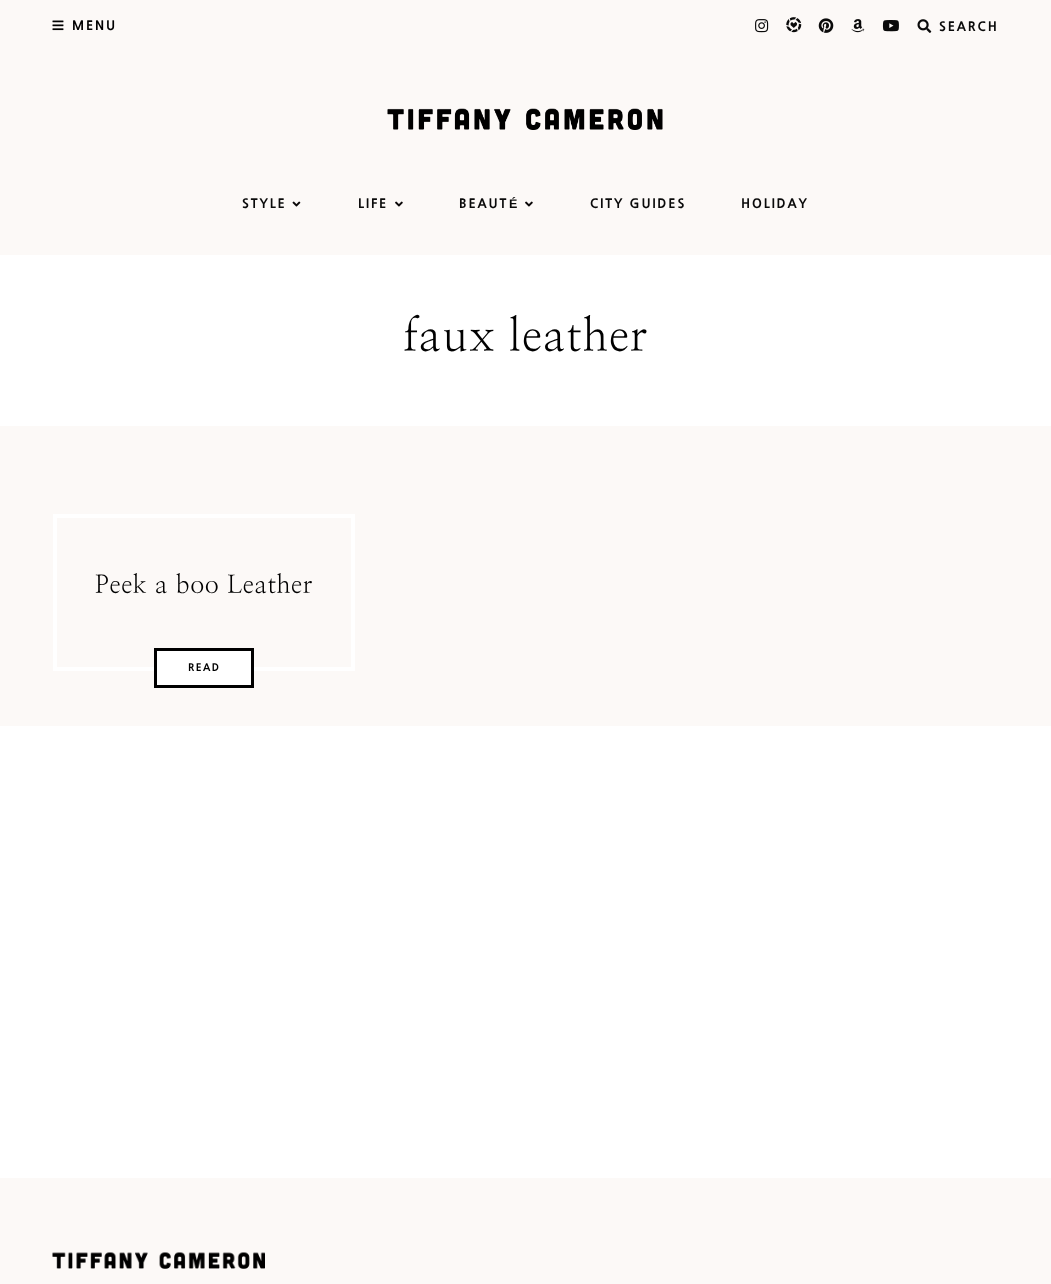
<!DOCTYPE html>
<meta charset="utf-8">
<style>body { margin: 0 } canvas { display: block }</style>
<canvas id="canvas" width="1051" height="1284"></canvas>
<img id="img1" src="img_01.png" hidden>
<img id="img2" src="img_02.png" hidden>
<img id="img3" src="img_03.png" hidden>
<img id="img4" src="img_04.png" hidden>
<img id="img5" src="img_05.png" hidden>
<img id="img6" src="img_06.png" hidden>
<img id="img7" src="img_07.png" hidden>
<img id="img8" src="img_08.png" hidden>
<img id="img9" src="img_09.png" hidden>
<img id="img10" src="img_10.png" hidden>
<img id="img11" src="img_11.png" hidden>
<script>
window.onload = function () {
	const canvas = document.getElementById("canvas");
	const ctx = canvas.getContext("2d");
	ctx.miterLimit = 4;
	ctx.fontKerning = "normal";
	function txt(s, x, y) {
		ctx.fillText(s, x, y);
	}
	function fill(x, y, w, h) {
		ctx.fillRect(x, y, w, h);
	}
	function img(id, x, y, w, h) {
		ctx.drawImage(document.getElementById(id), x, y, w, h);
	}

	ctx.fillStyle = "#FFFFFF";
	fill(0, 0, 1051, 1284);
	ctx.fillStyle = "#FCF9F7";
	fill(0, 0, 1051, 255);
	img("img1", 52, 20, 12, 11);
	img("img2", 755, 19, 14, 14);
	img("img3", 786, 17, 16, 16);
	img("img4", 818, 18, 16, 15);
	img("img5", 851, 19, 14, 14);
	img("img6", 882, 20, 17, 12);
	img("img7", 917, 19, 15, 14);
	img("img8", 387, 108, 276, 22);
	img("img9", 292, 201, 9, 6);
	img("img10", 395, 201, 8, 6);
	img("img10", 525, 201, 8, 6);
	fill(0, 426, 1051, 300);
	ctx.strokeStyle = "#FFFFFF";
	ctx.lineWidth = 4;
	ctx.strokeRect(55, 516, 298, 153);
	ctx.fillStyle = "#FFFFFF";
	ctx.beginPath();
	ctx.rect(155.5, 649.5, 97, 37);
	ctx.fill();
	ctx.strokeStyle = "#000000";
	ctx.lineWidth = 3;
	ctx.stroke();
	ctx.fillStyle = "#FCF9F7";
	fill(0, 1178, 1051, 106);
	img("img11", 52, 1252, 213, 17);
	ctx.letterSpacing = "1.9px";
	ctx.font = "800 12.5px NanumGothic";
	ctx.fillStyle = "#000000";
	txt("MENU", 72, 30);
	ctx.fillStyle = "#0A0A0A";
	txt("SEARCH", 939, 31);
	txt("STYLE", 242, 208);
	txt("LIFE", 358, 208);
	txt("BEAUT", 459, 208);
	ctx.font = "bold 12.5px Liberation Sans";
	txt("É", 509, 208);
	ctx.font = "800 12.5px NanumGothic";
	txt("CITY GUIDES", 590, 208);
	txt("HOLIDAY", 741, 208);
	ctx.letterSpacing = "1.1px";
	ctx.font = "45px NanumMyeongjo";
	ctx.fillStyle = "#000000";
	txt("faux leather", 403, 351);
	ctx.letterSpacing = "0.6px";
	ctx.font = "25px NanumMyeongjo";
	txt("Peek a boo Leather", 95, 593);
	ctx.letterSpacing = "1.5px";
	ctx.font = "800 10px NanumGothic";
	txt("READ", 188, 671);
};
</script>
